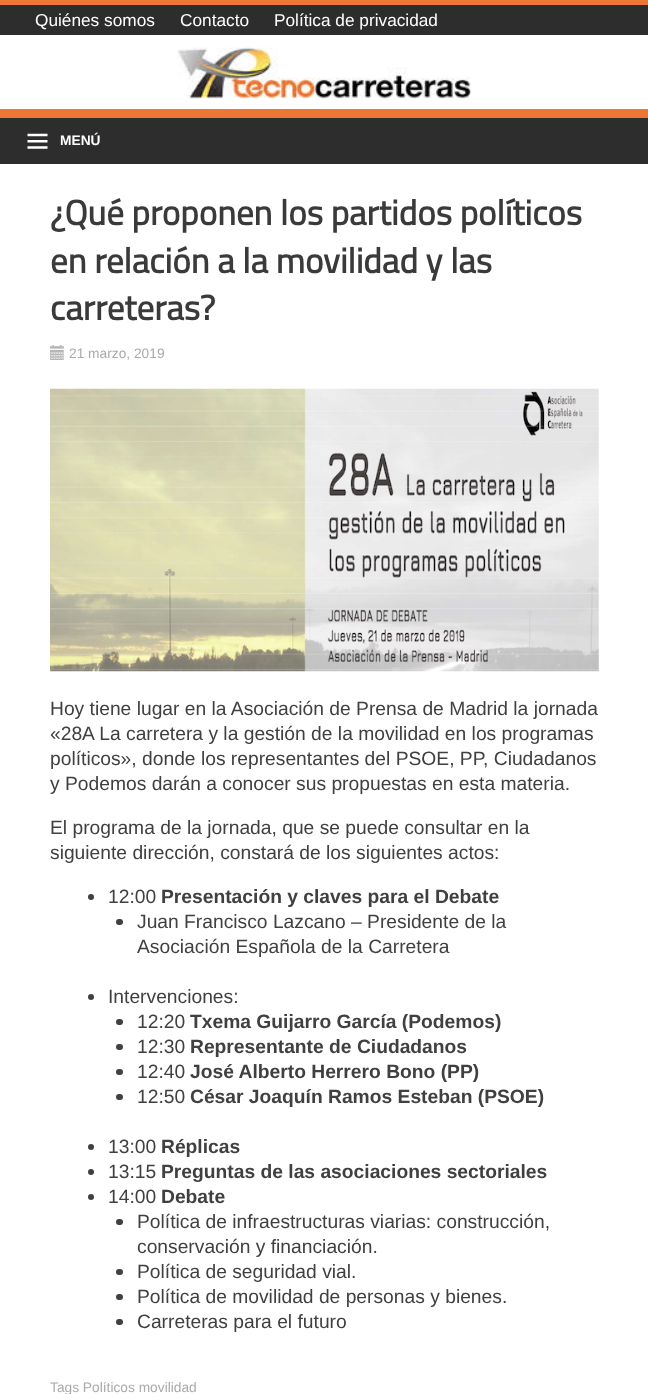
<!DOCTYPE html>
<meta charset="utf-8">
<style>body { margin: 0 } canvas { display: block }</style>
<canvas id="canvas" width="648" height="1394"></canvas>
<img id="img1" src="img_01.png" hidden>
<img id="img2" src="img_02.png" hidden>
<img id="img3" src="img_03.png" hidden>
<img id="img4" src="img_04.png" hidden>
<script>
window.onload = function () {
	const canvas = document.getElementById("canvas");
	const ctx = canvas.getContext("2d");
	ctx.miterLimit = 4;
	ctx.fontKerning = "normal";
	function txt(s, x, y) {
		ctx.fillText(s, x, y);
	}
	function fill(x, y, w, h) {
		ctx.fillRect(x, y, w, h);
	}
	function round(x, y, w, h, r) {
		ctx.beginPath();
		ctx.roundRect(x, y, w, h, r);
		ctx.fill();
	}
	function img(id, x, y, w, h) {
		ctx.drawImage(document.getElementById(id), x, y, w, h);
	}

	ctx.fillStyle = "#FFFFFF";
	fill(0, 0, 648, 1394);
	ctx.fillStyle = "#2D2D2D";
	fill(0, 5, 648, 30);
	ctx.fillStyle = "#ED7835";
	fill(0, 0, 648, 5);
	img("img1", 177, 47, 295, 52);
	ctx.fillStyle = "#2D2D2D";
	fill(0, 118, 648, 46);
	ctx.fillStyle = "#ED7835";
	fill(0, 109, 648, 9);
	img("img2", 27, 133, 21, 16);
	img("img3", 50, 345, 14, 15);
	img("img4", 50, 388, 549, 284);
	ctx.fillStyle = "#404040";
	ctx.beginPath();
	ctx.arc(91, 897, 3, 0, Math.PI * 2);
	ctx.fill();
	round(116, 919, 7, 6, 3);
	ctx.beginPath();
	ctx.arc(91, 997, 3, 0, Math.PI * 2);
	ctx.fill();
	round(116, 1019, 7, 6, 3);
	round(116, 1044, 7, 6, 3);
	round(116, 1069, 7, 6, 3);
	round(116, 1094, 7, 6, 3);
	ctx.beginPath();
	ctx.arc(91, 1147, 3, 0, Math.PI * 2);
	ctx.fill();
	ctx.beginPath();
	ctx.arc(91, 1172, 3, 0, Math.PI * 2);
	ctx.fill();
	ctx.beginPath();
	ctx.arc(91, 1197, 3, 0, Math.PI * 2);
	ctx.fill();
	round(116, 1219, 7, 6, 3);
	round(116, 1269, 7, 6, 3);
	round(116, 1294, 7, 6, 3);
	round(116, 1319, 7, 6, 3);
	ctx.font = "17.25px Liberation Sans";
	ctx.fillStyle = "#FFFFFF";
	txt("Quiénes somos", 35, 26);
	txt("Contacto", 180, 26);
	txt("Política de privacidad", 274, 26);
	ctx.font = "bold 13.75px Liberation Sans";
	txt("MENÚ", 60, 145);
	ctx.font = "bold 35px Titillium Web";
	ctx.fillStyle = "#3A3A3A";
	txt("¿Qué proponen los partidos políticos", 50, 225);
	txt("en relación a la movilidad y las", 50, 273);
	txt("carreteras?", 50, 320);
	ctx.font = "13.75px Liberation Sans";
	ctx.fillStyle = "#AAAAAA";
	txt("21 marzo, 2019", 69, 358);
	ctx.font = "19.25px Liberation Sans";
	ctx.fillStyle = "#404040";
	txt("Hoy tiene lugar en la Asociación de Prensa de Madrid la jornada", 50, 715);
	txt("«28A La carretera y la gestión de la movilidad en los programas", 50, 740);
	txt("políticos», donde los representantes del PSOE, PP, Ciudadanos", 50, 765);
	txt("y Podemos darán a conocer sus propuestas en esta materia.", 50, 790);
	txt("El programa de la jornada, que se puede consultar en la", 50, 834);
	txt("siguiente dirección, constará de los siguientes actos:", 50, 859);
	txt("12:00", 108, 903);
	ctx.font = "bold 19.25px Liberation Sans";
	txt("Presentación y claves para el Debate", 161, 903);
	ctx.font = "19.25px Liberation Sans";
	txt("Juan Francisco Lazcano – Presidente de la", 137, 928);
	txt("Asociación Española de la Carretera", 137, 953);
	txt("Intervenciones:", 108, 1003);
	txt("12:20", 137, 1028);
	ctx.font = "bold 19.25px Liberation Sans";
	txt("Txema Guijarro García (Podemos)", 190, 1028);
	ctx.font = "19.25px Liberation Sans";
	txt("12:30", 137, 1053);
	ctx.font = "bold 19.25px Liberation Sans";
	txt("Representante de Ciudadanos", 190, 1053);
	ctx.font = "19.25px Liberation Sans";
	txt("12:40", 137, 1078);
	ctx.font = "bold 19.25px Liberation Sans";
	txt("José Alberto Herrero Bono (PP)", 190, 1078);
	ctx.font = "19.25px Liberation Sans";
	txt("12:50", 137, 1103);
	ctx.font = "bold 19.25px Liberation Sans";
	txt("César Joaquín Ramos Esteban (PSOE)", 190, 1103);
	ctx.font = "19.25px Liberation Sans";
	txt("13:00", 108, 1153);
	ctx.font = "bold 19.25px Liberation Sans";
	txt("Réplicas", 161, 1153);
	ctx.font = "19.25px Liberation Sans";
	txt("13:15", 108, 1178);
	ctx.font = "bold 19.25px Liberation Sans";
	txt("Preguntas de las asociaciones sectoriales", 161, 1178);
	ctx.font = "19.25px Liberation Sans";
	txt("14:00", 108, 1203);
	ctx.font = "bold 19.25px Liberation Sans";
	txt("Debate", 161, 1203);
	ctx.font = "19.25px Liberation Sans";
	txt("Política de infraestructuras viarias: construcción,", 137, 1228);
	txt("conservación y financiación.", 137, 1253);
	txt("Política de seguridad vial.", 137, 1278);
	txt("Política de movilidad de personas y bienes.", 137, 1303);
	txt("Carreteras para el futuro", 137, 1328);
	ctx.font = "13.75px Liberation Sans";
	ctx.fillStyle = "#AAAAAA";
	txt("Tags Políticos movilidad", 50, 1392);
};
</script>
